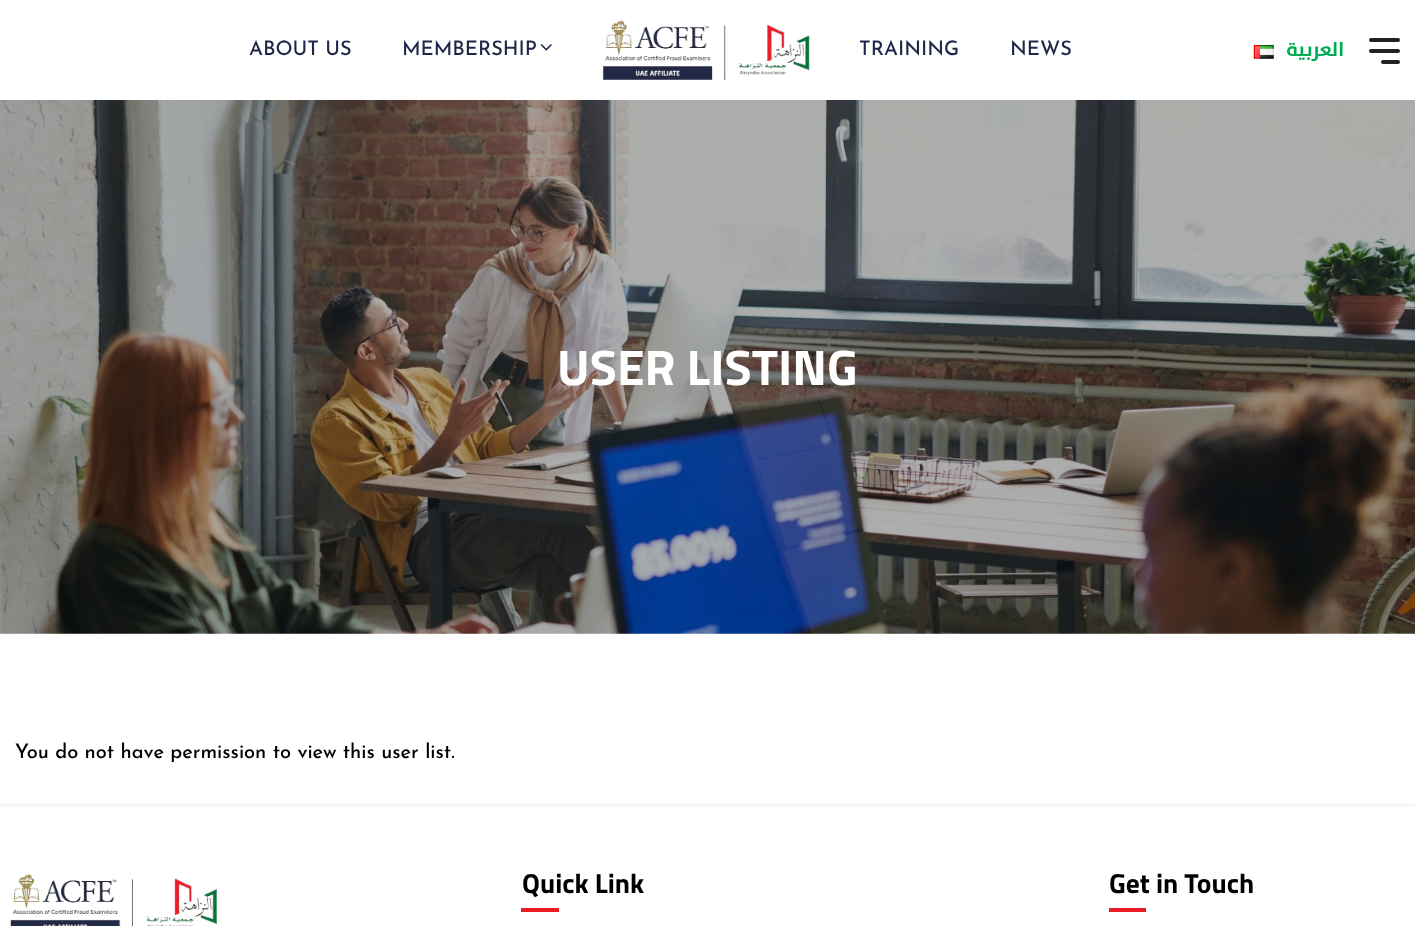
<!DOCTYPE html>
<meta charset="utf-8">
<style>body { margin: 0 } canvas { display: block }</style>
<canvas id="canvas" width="1415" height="926"></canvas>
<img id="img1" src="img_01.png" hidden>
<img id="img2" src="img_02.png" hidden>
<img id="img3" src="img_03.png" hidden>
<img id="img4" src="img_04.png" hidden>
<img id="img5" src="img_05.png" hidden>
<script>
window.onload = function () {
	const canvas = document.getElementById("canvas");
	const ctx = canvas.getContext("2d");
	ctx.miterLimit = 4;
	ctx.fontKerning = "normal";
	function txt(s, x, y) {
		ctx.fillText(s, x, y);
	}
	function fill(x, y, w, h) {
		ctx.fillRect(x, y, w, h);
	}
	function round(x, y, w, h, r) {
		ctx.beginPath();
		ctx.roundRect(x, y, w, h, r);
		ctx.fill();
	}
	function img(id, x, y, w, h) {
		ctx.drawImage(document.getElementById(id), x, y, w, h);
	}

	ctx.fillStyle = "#FFFFFF";
	fill(0, 0, 1415, 926);
	img("img1", 602, 20, 208, 61);
	img("img2", 540, 44, 12, 7);
	img("img3", 1253, 45, 21, 14);
	ctx.fillStyle = "#222222";
	round(1369, 38, 31, 4, 2);
	round(1369, 49, 31, 4, 2);
	round(1381, 60, 19, 4, 2);
	img("img4", 0, 100, 1415, 534);
	ctx.fillStyle = "#F3F7F7";
	fill(0, 804, 1415, 3);
	img("img5", 10, 873, 207, 53);
	ctx.fillStyle = "#EB1B27";
	fill(521, 908, 38, 4);
	fill(1109, 908, 37, 4);
	ctx.font = "500 20px Josefin Sans";
	ctx.fillStyle = "#1F2649";
	txt("ABOUT US", 249, 55);
	txt("MEMBERSHIP", 402, 55);
	txt("TRAINING", 859, 55);
	txt("NEWS", 1010, 55);
	ctx.direction = "rtl";
	ctx.font = "bold 20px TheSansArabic";
	ctx.fillStyle = "#00AC53";
	txt("العربية", 1344, 56);
	ctx.direction = "ltr";
	ctx.font = "bold 50px Titillium Web";
	ctx.fillStyle = "#FFFFFF";
	txt("USER LISTING", 557, 385);
	ctx.font = "500 20px Josefin Sans";
	ctx.fillStyle = "#000000";
	txt("You do not have permission to view this user list.", 15, 758);
	ctx.font = "bold 27.5px Titillium Web";
	txt("Quick Link", 522, 893);
	txt("Get in Touch", 1109, 893);
};
</script>
